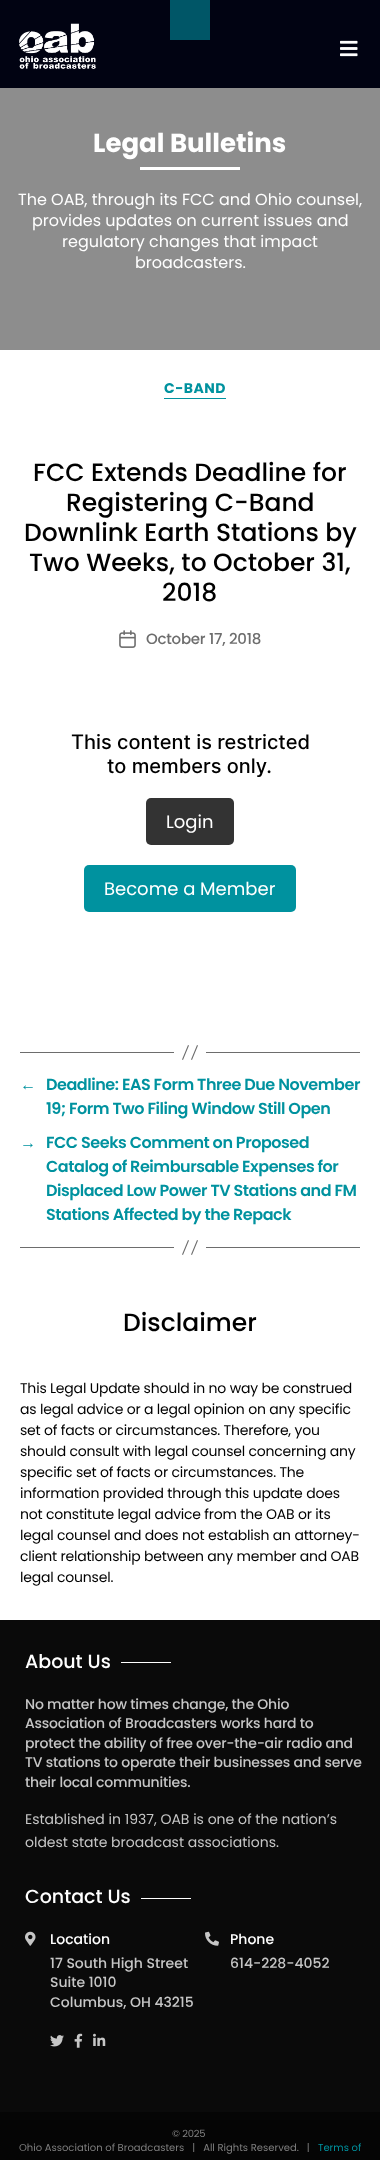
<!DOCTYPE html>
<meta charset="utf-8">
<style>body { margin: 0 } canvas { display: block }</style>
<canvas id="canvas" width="380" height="2160"></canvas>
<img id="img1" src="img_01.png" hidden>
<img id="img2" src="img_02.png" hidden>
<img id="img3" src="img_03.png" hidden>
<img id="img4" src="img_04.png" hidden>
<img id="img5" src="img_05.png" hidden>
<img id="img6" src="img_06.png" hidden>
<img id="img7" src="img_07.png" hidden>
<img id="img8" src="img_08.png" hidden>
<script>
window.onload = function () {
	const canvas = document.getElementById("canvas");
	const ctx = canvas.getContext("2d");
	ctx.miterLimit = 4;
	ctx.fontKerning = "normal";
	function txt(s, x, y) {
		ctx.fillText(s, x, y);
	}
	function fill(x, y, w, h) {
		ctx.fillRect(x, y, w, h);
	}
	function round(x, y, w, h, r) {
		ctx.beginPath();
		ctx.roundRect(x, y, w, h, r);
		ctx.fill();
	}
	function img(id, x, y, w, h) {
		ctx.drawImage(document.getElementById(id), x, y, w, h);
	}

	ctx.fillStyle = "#FFFFFF";
	fill(0, 0, 380, 2160);
	ctx.fillStyle = "#010312";
	fill(0, 0, 380, 88);
	ctx.fillStyle = "#005667";
	fill(170, 0, 40, 40);
	img("img1", 19, 23, 77, 46);
	img("img2", 340, 40, 18, 17);
	ctx.fillStyle = "#8D8D8D";
	fill(0, 88, 380, 262);
	ctx.fillStyle = "#FFFFFF";
	fill(140, 167, 100, 3);
	ctx.fillStyle = "#00929F";
	fill(164, 398, 62, 1);
	img("img3", 119, 630, 17, 18);
	ctx.fillStyle = "#333333";
	round(146, 798, 88, 47, 5);
	ctx.fillStyle = "#00929F";
	round(84, 865, 212, 47, 5);
	ctx.fillStyle = "#6D6D6D";
	fill(206, 1052, 154, 1);
	fill(20, 1052, 154, 1);
	ctx.beginPath();
	ctx.moveTo(188, 1045);
	ctx.lineTo(189, 1045.5);
	ctx.lineTo(183, 1060);
	ctx.lineTo(182, 1059.5);
	ctx.closePath();
	ctx.moveTo(197, 1045);
	ctx.lineTo(198, 1045.5);
	ctx.lineTo(192, 1060);
	ctx.lineTo(191, 1059.5);
	ctx.closePath();
	ctx.fill();
	fill(206, 1247, 154, 1);
	fill(20, 1247, 154, 1);
	ctx.beginPath();
	ctx.moveTo(188, 1240);
	ctx.lineTo(189, 1240.5);
	ctx.lineTo(183, 1255);
	ctx.lineTo(182, 1254.5);
	ctx.closePath();
	ctx.moveTo(197, 1240);
	ctx.lineTo(198, 1240.5);
	ctx.lineTo(192, 1255);
	ctx.lineTo(191, 1254.5);
	ctx.closePath();
	ctx.fill();
	ctx.fillStyle = "#0A0A0A";
	fill(0, 1620, 380, 492);
	ctx.fillStyle = "#FFFFFF";
	fill(121, 1662, 50, 1);
	fill(141, 1898, 50, 1);
	img("img4", 25, 1931, 11, 15);
	img("img5", 50, 2035, 14, 12);
	img("img6", 74, 2033, 9, 15);
	img("img7", 93, 2033, 13, 13);
	img("img8", 205, 1931, 14, 15);
	ctx.fillStyle = "#050505";
	fill(0, 2112, 380, 48);
	ctx.font = "bold 26px Poppins";
	ctx.fillStyle = "#FFFFFF";
	txt("Legal Bulletins", 93, 152);
	ctx.font = "16px Poppins";
	txt("The OAB, through its FCC and Ohio counsel,", 18, 205);
	txt("provides updates on current issues and", 32, 226);
	txt("regulatory changes that impact", 62, 247);
	txt("broadcasters.", 135, 268);
	ctx.letterSpacing = "0.5px";
	ctx.font = "bold 14px Poppins";
	ctx.fillStyle = "#00929F";
	txt("C-BAND", 164, 393);
	ctx.letterSpacing = "0px";
	ctx.font = "500 25px Poppins";
	ctx.fillStyle = "#000000";
	txt("FCC Extends Deadline for", 33, 481);
	txt("Registering C-Band", 66, 511);
	txt("Downlink Earth Stations by", 24, 541);
	txt("Two Weeks, to October 31,", 29, 571);
	txt("2018", 162, 601);
	ctx.letterSpacing = "-0.25px";
	ctx.font = "500 15px Poppins";
	ctx.fillStyle = "#6D6D6D";
	txt("October 17, 2018", 146, 644);
	ctx.letterSpacing = "0px";
	ctx.font = "500 20px Inter";
	ctx.fillStyle = "#000000";
	txt("This content is restricted", 71, 749);
	txt("to members only.", 107, 773);
	ctx.font = "18px Poppins";
	ctx.fillStyle = "#FFFFFF";
	txt("Login", 166, 828);
	txt("Become a Member", 104, 895);
	ctx.letterSpacing = "-0.45px";
	ctx.font = "bold 16px Liberation Serif";
	ctx.fillStyle = "#00929F";
	txt("←", 20, 1090);
	ctx.font = "600 16px Poppins";
	txt("Deadline: EAS Form Three Due November", 46, 1090);
	txt("19; Form Two Filing Window Still Open", 46, 1114);
	ctx.font = "bold 16px Liberation Serif";
	txt("→", 20, 1148);
	ctx.font = "600 16px Poppins";
	txt("FCC Seeks Comment on Proposed", 46, 1148);
	txt("Catalog of Reimbursable Expenses for", 46, 1172);
	txt("Displaced Low Power TV Stations and FM", 46, 1196);
	txt("Stations Affected by the Repack", 46, 1220);
	ctx.letterSpacing = "0px";
	ctx.font = "500 25px Poppins";
	ctx.fillStyle = "#000000";
	txt("Disclaimer", 123, 1331);
	ctx.letterSpacing = "-0.2px";
	ctx.font = "14px Poppins";
	txt("This Legal Update should in no way be construed", 20, 1393);
	txt("as legal advice or a legal opinion on any specific", 20, 1414);
	txt("set of facts or circumstances. Therefore, you", 20, 1435);
	txt("should consult with legal counsel concerning any", 20, 1456);
	txt("specific set of facts or circumstances. The", 20, 1477);
	txt("information provided through this update does", 20, 1498);
	txt("not constitute legal advice from the OAB or its", 20, 1519);
	txt("legal counsel and does not establish an attorney-", 20, 1540);
	txt("client relationship between any member and OAB", 20, 1561);
	txt("legal counsel.", 20, 1582);
	ctx.letterSpacing = "0px";
	ctx.font = "500 19px Poppins";
	ctx.fillStyle = "#FFFFFF";
	txt("About Us", 25, 1668);
	ctx.letterSpacing = "-0.2px";
	ctx.font = "500 14px Poppins";
	ctx.fillStyle = "#C6C6C6";
	txt("No matter how times change, the Ohio", 25, 1709);
	txt("Association of Broadcasters works hard to", 25, 1728);
	txt("protect the ability of free over-the-air radio and", 25, 1748);
	txt("TV stations to operate their businesses and serve", 25, 1767);
	txt("their local communities.", 25, 1787);
	ctx.letterSpacing = "0px";
	ctx.font = "14px Poppins";
	txt("Established in 1937, OAB is one of the nation’s", 25, 1824);
	txt("oldest state broadcast associations.", 25, 1847);
	ctx.font = "500 19px Poppins";
	ctx.fillStyle = "#FFFFFF";
	txt("Contact Us", 25, 1903);
	ctx.font = "500 14px Poppins";
	txt("Location", 50, 1944);
	ctx.fillStyle = "#C6C6C6";
	txt("17 South High Street", 50, 1968);
	txt("Suite 1010", 50, 1987);
	txt("Columbus, OH 43215", 50, 2007);
	ctx.fillStyle = "#FFFFFF";
	txt("Phone", 230, 1944);
	ctx.fillStyle = "#C6C6C6";
	txt("614-228-4052", 230, 1968);
	ctx.letterSpacing = "-0.2px";
	ctx.font = "10px Poppins";
	ctx.fillStyle = "#7E7E7E";
	txt("© 2025", 172, 2137);
	ctx.letterSpacing = "0px";
	txt("Ohio Association of Broadcasters   |   All Rights Reserved.   |", 19, 2151);
	ctx.fillStyle = "#00929F";
	txt("Terms of", 318, 2151);
};
</script>
